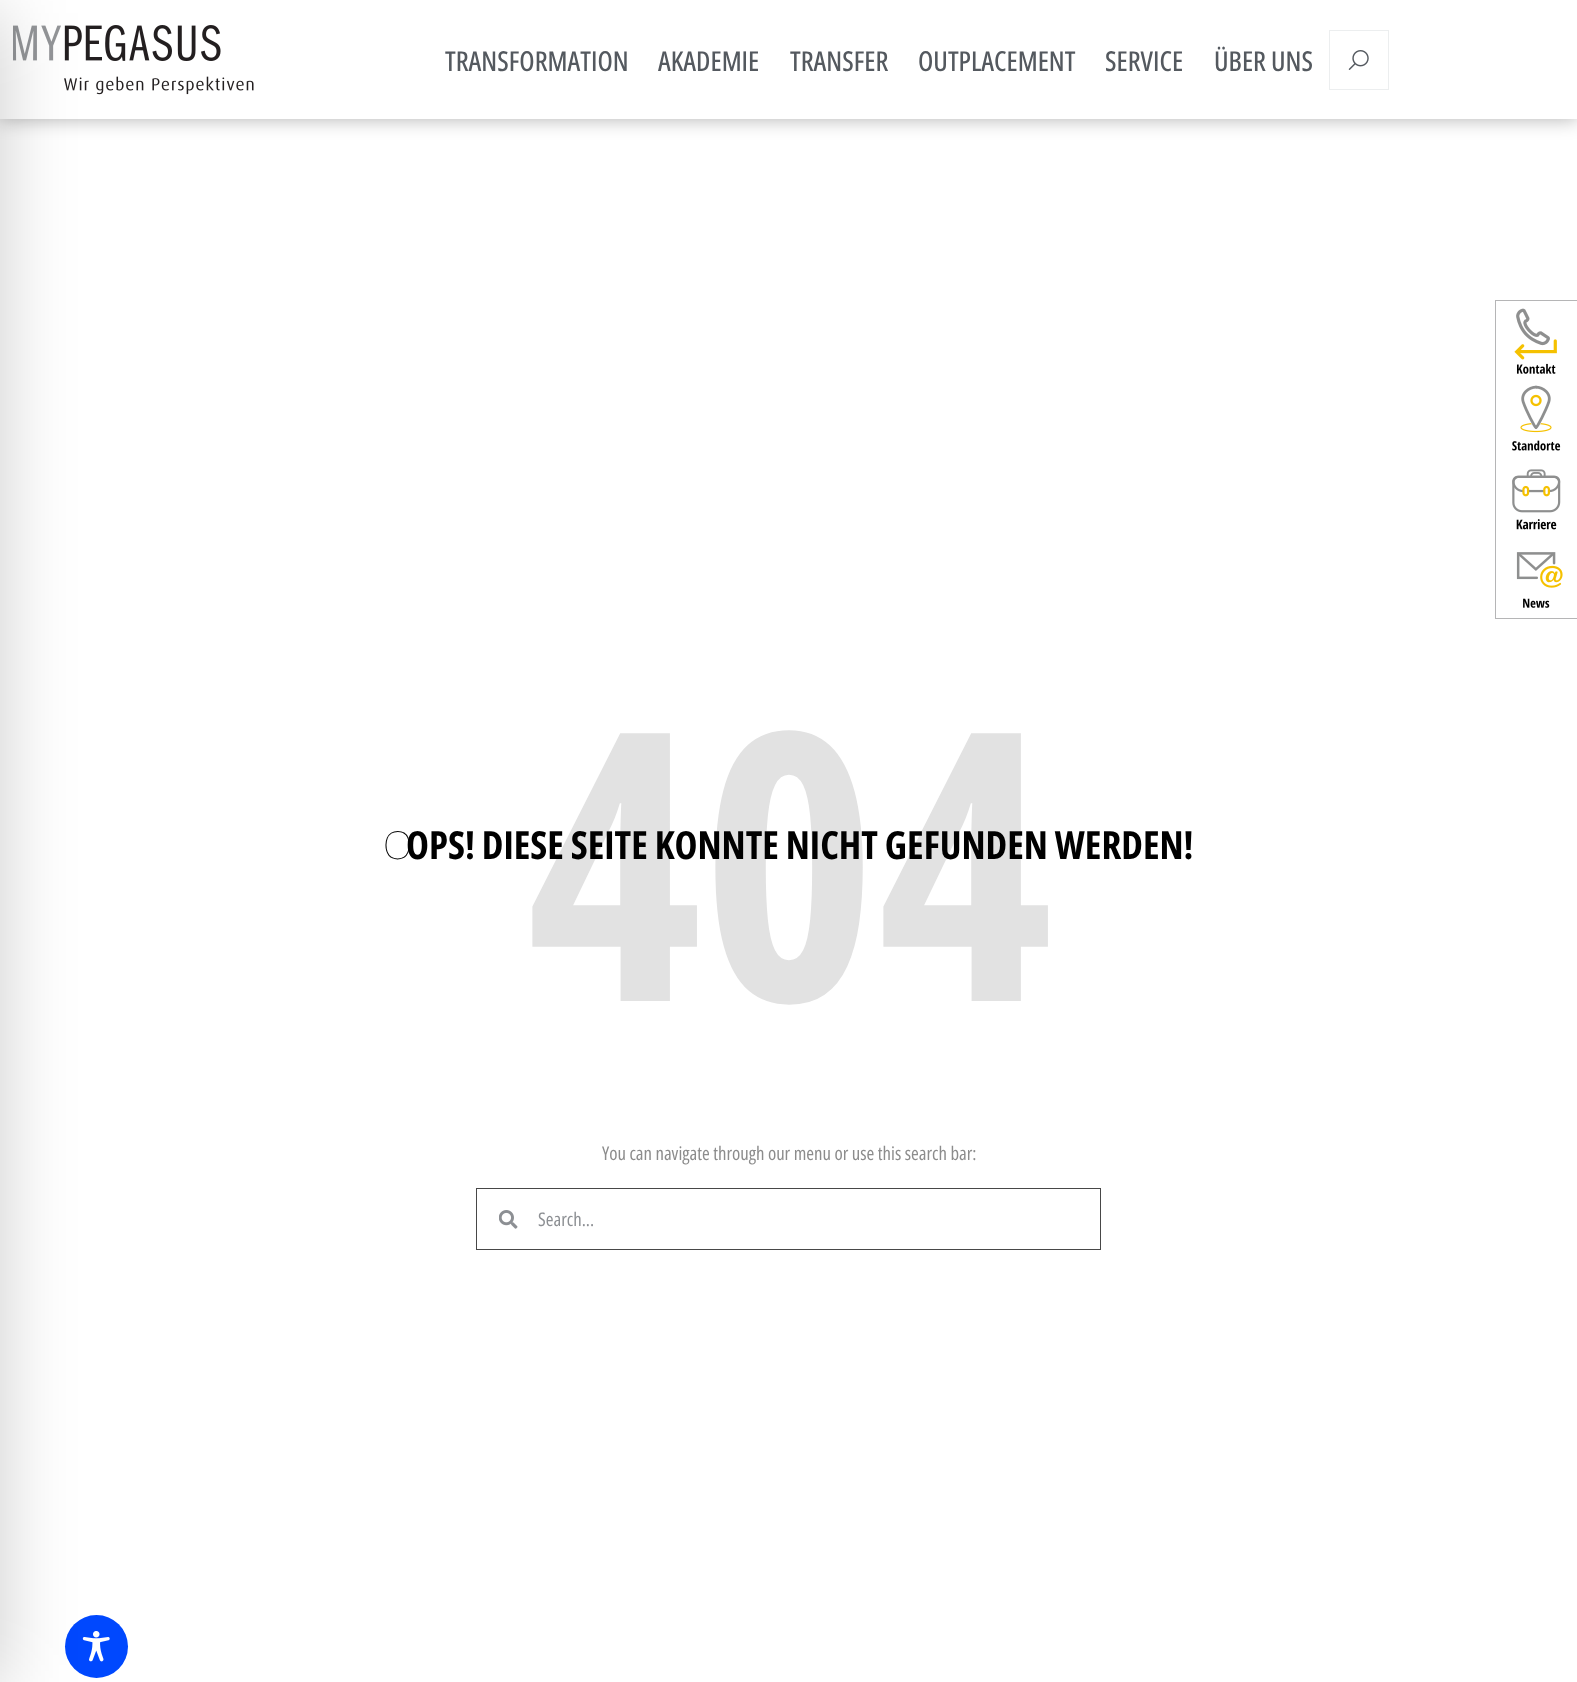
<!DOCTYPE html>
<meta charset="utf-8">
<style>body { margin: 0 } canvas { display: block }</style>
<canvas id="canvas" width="1577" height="1682"></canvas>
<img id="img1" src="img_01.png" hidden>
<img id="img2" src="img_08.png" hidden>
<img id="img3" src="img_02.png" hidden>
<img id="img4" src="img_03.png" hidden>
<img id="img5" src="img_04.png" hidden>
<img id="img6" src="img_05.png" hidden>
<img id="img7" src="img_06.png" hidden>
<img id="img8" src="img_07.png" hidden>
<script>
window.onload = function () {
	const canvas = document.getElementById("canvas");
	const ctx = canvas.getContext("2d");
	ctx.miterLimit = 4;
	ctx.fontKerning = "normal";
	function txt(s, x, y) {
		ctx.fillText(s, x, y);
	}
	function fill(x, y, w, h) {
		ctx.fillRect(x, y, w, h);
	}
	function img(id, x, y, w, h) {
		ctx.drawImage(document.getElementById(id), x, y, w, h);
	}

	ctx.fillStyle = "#FFFFFF";
	fill(0, 0, 1577, 1682);
	ctx.fillStyle = "rgba(0, 0, 0, 0.31)";
	ctx.filter = "blur(9.5px)";
	ctx.beginPath();
	ctx.rect(0, 0, 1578, 119);
	ctx.fill();
	ctx.filter = "none";
	ctx.fillStyle = "#FFFFFF";
	fill(0, 0, 1577, 119);
	img("img1", 13, 25, 241, 70);
	ctx.fillStyle = "#0048FE";
	ctx.beginPath();
	ctx.arc(96.5, 1646.5, 31.5, 0, Math.PI * 2);
	ctx.fill();
	img("img2", 82, 1631, 28, 31);
	ctx.fillStyle = "rgba(0, 0, 0, 0.2)";
	ctx.filter = "blur(37.5px)";
	ctx.beginPath();
	ctx.rect(-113, 13, 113, 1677);
	ctx.fill();
	ctx.filter = "none";
	ctx.strokeStyle = "#ECEEEF";
	ctx.strokeRect(1329.5, 30.5, 59, 59);
	img("img3", 1348, 50, 21, 20);
	ctx.strokeStyle = "#B5B5B6";
	ctx.strokeRect(1495.5, 300.5, 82, 318);
	img("img4", 1514, 308, 43, 66);
	img("img5", 1512, 385, 49, 66);
	img("img6", 1512, 469, 49, 61);
	img("img7", 1516, 552, 47, 56);
	ctx.strokeStyle = "#474747";
	ctx.strokeRect(476.5, 1188.5, 624, 61);
	img("img8", 499, 1210, 19, 19);
	ctx.font = "500 27.5px Open Sans Condensed";
	ctx.fillStyle = "#54595F";
	txt("TRANSFORMATION", 445, 71);
	txt("AKADEMIE", 658, 71);
	txt("TRANSFER", 790, 71);
	txt("OUTPLACEMENT", 918, 71);
	txt("SERVICE", 1105, 71);
	txt("ÜBER UNS", 1214, 71);
	ctx.font = "bold 374px Open Sans Condensed";
	ctx.fillStyle = "#E2E2E2";
	txt("404", 526, 1001);
	ctx.font = "100 38.75px Noto Sans";
	ctx.fillStyle = "#000000";
	txt("O", 383, 859);
	ctx.font = "bold 38.75px Open Sans Condensed";
	txt("OPS! DIESE SEITE KONNTE NICHT GEFUNDEN WERDEN!", 406, 859);
	ctx.font = "18.75px Open Sans Condensed";
	ctx.fillStyle = "#8C8C8C";
	txt("You can navigate through our menu or use this search bar:", 602, 1160);
	ctx.fillStyle = "#8C8F93";
	txt("Search...", 538, 1226);
};
</script>
